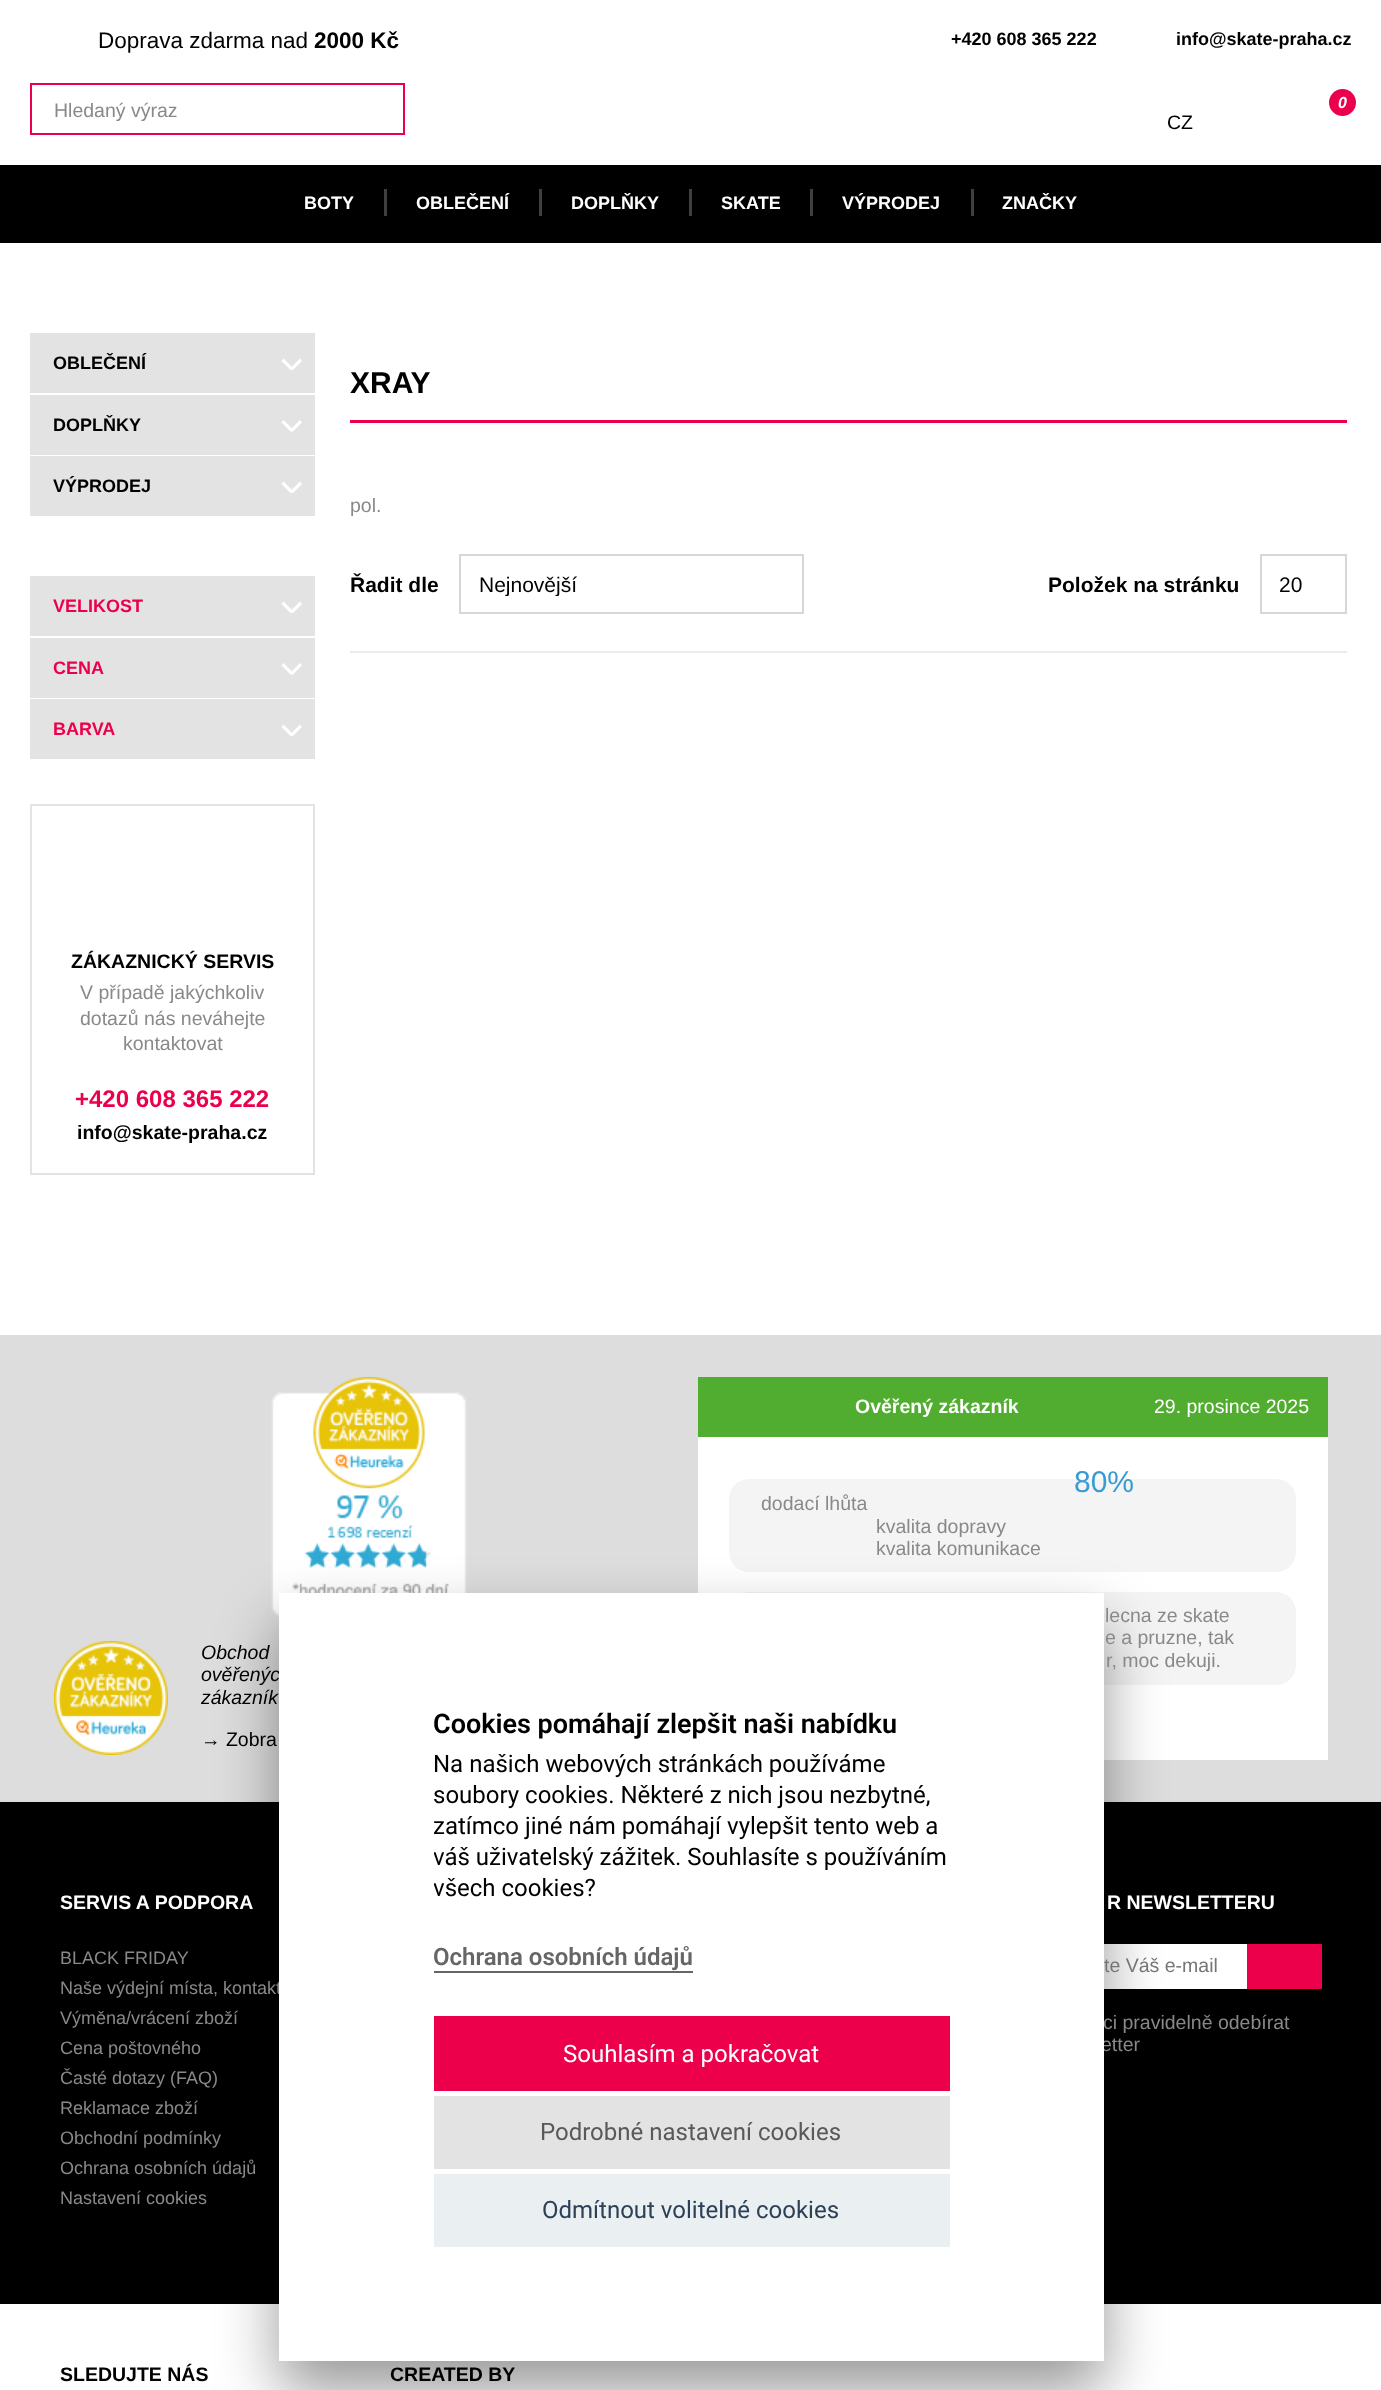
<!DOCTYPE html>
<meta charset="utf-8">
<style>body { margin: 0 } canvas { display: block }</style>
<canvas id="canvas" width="1381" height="2390"></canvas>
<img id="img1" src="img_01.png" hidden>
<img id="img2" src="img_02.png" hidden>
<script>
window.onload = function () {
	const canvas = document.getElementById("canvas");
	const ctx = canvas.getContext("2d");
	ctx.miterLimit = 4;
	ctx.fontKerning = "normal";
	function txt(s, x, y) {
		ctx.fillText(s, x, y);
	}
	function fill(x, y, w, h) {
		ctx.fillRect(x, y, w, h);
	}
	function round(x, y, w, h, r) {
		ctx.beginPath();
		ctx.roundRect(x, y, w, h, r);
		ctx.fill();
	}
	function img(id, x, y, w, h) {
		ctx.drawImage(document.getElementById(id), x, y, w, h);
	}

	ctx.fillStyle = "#FFFFFF";
	fill(0, 0, 1381, 2390);
	ctx.strokeStyle = "#EC004C";
	ctx.lineWidth = 2;
	ctx.strokeRect(31, 84, 373, 50);
	ctx.fillStyle = "#EC004C";
	ctx.beginPath();
	ctx.arc(1342.5, 102.5, 13.5, 0, Math.PI * 2);
	ctx.fill();
	ctx.fillStyle = "#000000";
	fill(0, 165, 1381, 78);
	ctx.fillStyle = "#3F3F3F";
	fill(384, 189, 3, 27);
	fill(539, 189, 3, 27);
	fill(689, 189, 3, 27);
	fill(810, 189, 3, 27);
	fill(971, 189, 3, 27);
	ctx.fillStyle = "#E3E3E3";
	fill(30, 333, 285, 60);
	ctx.fillStyle = "#FFFFFF";
	ctx.beginPath();
	ctx.moveTo(283.5, 358.5);
	ctx.lineTo(293, 368);
	ctx.lineTo(291, 370.5);
	ctx.lineTo(281.5, 361);
	ctx.closePath();
	ctx.fill();
	ctx.beginPath();
	ctx.moveTo(290.5, 368);
	ctx.lineTo(300, 358.5);
	ctx.lineTo(302, 361);
	ctx.lineTo(292.5, 370.5);
	ctx.closePath();
	ctx.fill();
	ctx.fillStyle = "#E3E3E3";
	fill(30, 395, 285, 60);
	ctx.fillStyle = "#FFFFFF";
	ctx.beginPath();
	ctx.moveTo(283.5, 420);
	ctx.lineTo(293, 429.5);
	ctx.lineTo(291, 432);
	ctx.lineTo(281.5, 422.5);
	ctx.closePath();
	ctx.fill();
	ctx.beginPath();
	ctx.moveTo(290.5, 429.5);
	ctx.lineTo(300, 420);
	ctx.lineTo(302, 422.5);
	ctx.lineTo(292.5, 432);
	ctx.closePath();
	ctx.fill();
	ctx.fillStyle = "#E3E3E3";
	fill(30, 456, 285, 60);
	ctx.fillStyle = "#FFFFFF";
	ctx.beginPath();
	ctx.moveTo(283.5, 481.5);
	ctx.lineTo(293, 491);
	ctx.lineTo(291, 493.5);
	ctx.lineTo(281.5, 484);
	ctx.closePath();
	ctx.fill();
	ctx.beginPath();
	ctx.moveTo(290.5, 491);
	ctx.lineTo(300, 481.5);
	ctx.lineTo(302, 484);
	ctx.lineTo(292.5, 493.5);
	ctx.closePath();
	ctx.fill();
	ctx.fillStyle = "#E3E3E3";
	fill(30, 576, 285, 60);
	ctx.fillStyle = "#FFFFFF";
	ctx.beginPath();
	ctx.moveTo(283.5, 601.5);
	ctx.lineTo(293, 611);
	ctx.lineTo(291, 613.5);
	ctx.lineTo(281.5, 604);
	ctx.closePath();
	ctx.fill();
	ctx.beginPath();
	ctx.moveTo(290.5, 611);
	ctx.lineTo(300, 601.5);
	ctx.lineTo(302, 604);
	ctx.lineTo(292.5, 613.5);
	ctx.closePath();
	ctx.fill();
	ctx.fillStyle = "#E3E3E3";
	fill(30, 638, 285, 60);
	ctx.fillStyle = "#FFFFFF";
	ctx.beginPath();
	ctx.moveTo(283.5, 663);
	ctx.lineTo(293, 672.5);
	ctx.lineTo(291, 675);
	ctx.lineTo(281.5, 665.5);
	ctx.closePath();
	ctx.fill();
	ctx.beginPath();
	ctx.moveTo(290.5, 672.5);
	ctx.lineTo(300, 663);
	ctx.lineTo(302, 665.5);
	ctx.lineTo(292.5, 675);
	ctx.closePath();
	ctx.fill();
	ctx.fillStyle = "#E3E3E3";
	fill(30, 699, 285, 60);
	ctx.fillStyle = "#FFFFFF";
	ctx.beginPath();
	ctx.moveTo(283.5, 724.5);
	ctx.lineTo(293, 734);
	ctx.lineTo(291, 736.5);
	ctx.lineTo(281.5, 727);
	ctx.closePath();
	ctx.fill();
	ctx.beginPath();
	ctx.moveTo(290.5, 734);
	ctx.lineTo(300, 724.5);
	ctx.lineTo(302, 727);
	ctx.lineTo(292.5, 736.5);
	ctx.closePath();
	ctx.fill();
	ctx.strokeStyle = "#E3E3E3";
	ctx.strokeRect(31, 805, 283, 369);
	ctx.fillStyle = "#EC004C";
	fill(350, 420, 997, 3);
	ctx.strokeStyle = "#D7D7D7";
	ctx.strokeRect(460, 555, 343, 58);
	ctx.strokeRect(1261, 555, 85, 58);
	ctx.fillStyle = "#EBEBEB";
	fill(350, 651, 997, 2);
	ctx.fillStyle = "#DDDDDD";
	fill(0, 1335, 1381, 467);
	ctx.fillStyle = "#FFFFFF";
	fill(698, 1437, 630, 323);
	ctx.fillStyle = "#50AD30";
	fill(698, 1377, 630, 60);
	ctx.fillStyle = "#F4F4F4";
	round(729, 1479, 567, 93, 20);
	round(729, 1592, 567, 93, 20);
	img("img1", 271, 1377, 196, 240);
	img("img2", 54, 1641, 114, 114);
	ctx.fillStyle = "#000000";
	fill(0, 1802, 1381, 502);
	ctx.fillStyle = "#FFFFFF";
	fill(1104, 1944, 143, 45);
	ctx.fillStyle = "rgba(0, 0, 0, 0.4)";
	ctx.filter = "blur(30px)";
	ctx.beginPath();
	ctx.rect(279, 1623, 825, 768);
	ctx.fill();
	ctx.filter = "none";
	ctx.fillStyle = "#EC004C";
	fill(1247, 1944, 75, 45);
	ctx.font = "22.5px Liberation Sans";
	ctx.fillStyle = "#000000";
	txt("Doprava zdarma nad", 98, 48);
	ctx.font = "bold 22.5px Liberation Sans";
	txt("2000 Kč", 314, 48);
	ctx.font = "bold 18px Liberation Sans";
	txt("+420 608 365 222", 951, 45);
	txt("info@skate-praha.cz", 1176, 45);
	ctx.font = "19.5px Liberation Sans";
	ctx.fillStyle = "#898989";
	txt("Hledaný výraz", 54, 117);
	ctx.fillStyle = "#000000";
	txt("CZ", 1167, 129);
	ctx.font = "italic bold 16px Liberation Sans";
	ctx.fillStyle = "#FFFFFF";
	txt("0", 1338, 108);
	ctx.font = "bold 18px Liberation Sans";
	txt("BOTY", 304, 209);
	txt("OBLEČENÍ", 416, 209);
	txt("DOPLŇKY", 571, 209);
	txt("SKATE", 721, 209);
	txt("VÝPRODEJ", 842, 209);
	txt("ZNAČKY", 1002, 209);
	ctx.fillStyle = "#000000";
	txt("OBLEČENÍ", 53, 369);
	txt("DOPLŇKY", 53, 431);
	txt("VÝPRODEJ", 53, 492);
	ctx.fillStyle = "#EC004C";
	txt("VELIKOST", 53, 612);
	txt("CENA", 53, 674);
	txt("BARVA", 53, 735);
	ctx.font = "bold 19.5px Liberation Sans";
	ctx.fillStyle = "#000000";
	txt("ZÁKAZNICKÝ SERVIS", 71, 968);
	ctx.font = "19.5px Liberation Sans";
	ctx.fillStyle = "#898989";
	txt("V případě jakýchkoliv", 80, 999);
	txt("dotazů nás neváhejte", 80, 1025);
	txt("kontaktovat", 123, 1050);
	ctx.font = "bold 24px Liberation Sans";
	ctx.fillStyle = "#EC004C";
	txt("+420 608 365 222", 75, 1107);
	ctx.font = "bold 19.5px Liberation Sans";
	ctx.fillStyle = "#000000";
	txt("info@skate-praha.cz", 77, 1139);
	ctx.font = "bold 30px Liberation Sans";
	txt("XRAY", 350, 393);
	ctx.font = "19.5px Liberation Sans";
	ctx.fillStyle = "#898989";
	txt("pol.", 350, 512);
	ctx.font = "bold 21px Liberation Sans";
	ctx.fillStyle = "#000000";
	txt("Řadit dle", 350, 592);
	ctx.save();
	ctx.beginPath();
	ctx.rect(479, 572, 282, 24);
	ctx.clip();
	ctx.font = "21px Liberation Sans";
	txt("Nejnovější", 479, 592);
	ctx.restore();
	txt("Položek na stránku", 1048, 592);
	ctx.font = "21px Liberation Sans";
	txt("20", 1279, 592);
	ctx.font = "bold 19.5px Liberation Sans";
	ctx.fillStyle = "#FFFFFF";
	txt("Ověřený zákazník", 855, 1413);
	ctx.font = "19.5px Liberation Sans";
	txt("29. prosince 2025", 1154, 1413);
	ctx.font = "30px Liberation Sans";
	ctx.fillStyle = "#389BD2";
	txt("80%", 1074, 1492);
	ctx.font = "19.5px Liberation Sans";
	ctx.fillStyle = "#898989";
	txt("dodací lhůta", 761, 1510);
	txt("kvalita dopravy", 876, 1533);
	txt("kvalita komunikace", 876, 1555);
	txt("lecna ze skate", 1105, 1622);
	txt("e a pruzne, tak", 1105, 1644);
	txt("r, moc dekuji.", 1106, 1667);
	ctx.font = "italic 19.5px Liberation Sans";
	ctx.fillStyle = "#000000";
	txt("Obchod", 201, 1659);
	txt("ověřenýc", 201, 1681);
	txt("zákazník", 201, 1704);
	ctx.font = "19.5px Liberation Sans";
	txt("→ Zobra", 201, 1746);
	ctx.font = "bold 19.5px Liberation Sans";
	ctx.fillStyle = "#FFFFFF";
	txt("SERVIS A PODPORA", 60, 1909);
	ctx.font = "18px Liberation Sans";
	ctx.fillStyle = "#898989";
	txt("BLACK FRIDAY", 60, 1964);
	txt("Naše výdejní místa, kontakt", 60, 1994);
	txt("Výměna/vrácení zboží", 60, 2024);
	txt("Cena poštovného", 60, 2054);
	txt("Časté dotazy (FAQ)", 60, 2084);
	txt("Reklamace zboží", 60, 2114);
	txt("Obchodní podmínky", 60, 2144);
	txt("Ochrana osobních údajů", 60, 2174);
	txt("Nastavení cookies", 60, 2204);
	ctx.font = "bold 19.5px Liberation Sans";
	ctx.fillStyle = "#FFFFFF";
	txt("R NEWSLETTERU", 1107, 1909);
	ctx.font = "19.5px Liberation Sans";
	ctx.fillStyle = "#757575";
	txt("te Váš e-mail", 1104, 1972);
	ctx.fillStyle = "#898989";
	txt("ci pravidelně odebírat", 1103, 2029);
	txt("etter", 1101, 2051);
	ctx.fillStyle = "#FFFFFF";
	fill(279, 1593, 825, 768);
	ctx.font = "600 27px Roboto";
	ctx.fillStyle = "#000000";
	txt("Cookies pomáhají zlepšit naši nabídku", 433, 1733);
	ctx.fillStyle = "#EAEFF2";
	fill(434, 2174, 516, 73);
	ctx.font = "24px Roboto";
	ctx.fillStyle = "#2D4156";
	txt("Odmítnout volitelné cookies", 542, 2218);
	ctx.fillStyle = "#E3E3E3";
	fill(434, 2096, 516, 73);
	ctx.fillStyle = "#5A5959";
	txt("Podrobné nastavení cookies", 540, 2140);
	ctx.fillStyle = "#EC004C";
	fill(434, 2016, 516, 75);
	ctx.fillStyle = "#FFFFFF";
	txt("Souhlasím a pokračovat", 563, 2062);
	ctx.save();
	ctx.beginPath();
	ctx.rect(434, 1943, 259, 28);
	ctx.clip();
	ctx.font = "600 24px Roboto";
	ctx.fillStyle = "#666666";
	txt("Ochrana osobních údajů", 433, 1965);
	ctx.restore();
	ctx.fillStyle = "#666666";
	fill(434, 1971, 259, 2);
	ctx.save();
	ctx.beginPath();
	ctx.rect(434, 1707, 516, 272);
	ctx.clip();
	ctx.fillStyle = "#000000";
	txt("všech cookies?", 433, 1896);
	txt("váš uživatelský zážitek. Souhlasíte s používáním", 433, 1865);
	txt("zatímco jiné nám pomáhají vylepšit tento web a", 433, 1834);
	ctx.restore();
	ctx.fillStyle = "#000000";
	txt("soubory cookies. Některé z nich jsou nezbytné,", 433, 1803);
	txt("Na našich webových stránkách používáme", 433, 1772);
	ctx.font = "bold 19.5px Liberation Sans";
	txt("SLEDUJTE NÁS", 60, 2381);
	txt("CREATED BY", 390, 2381);
};
</script>
